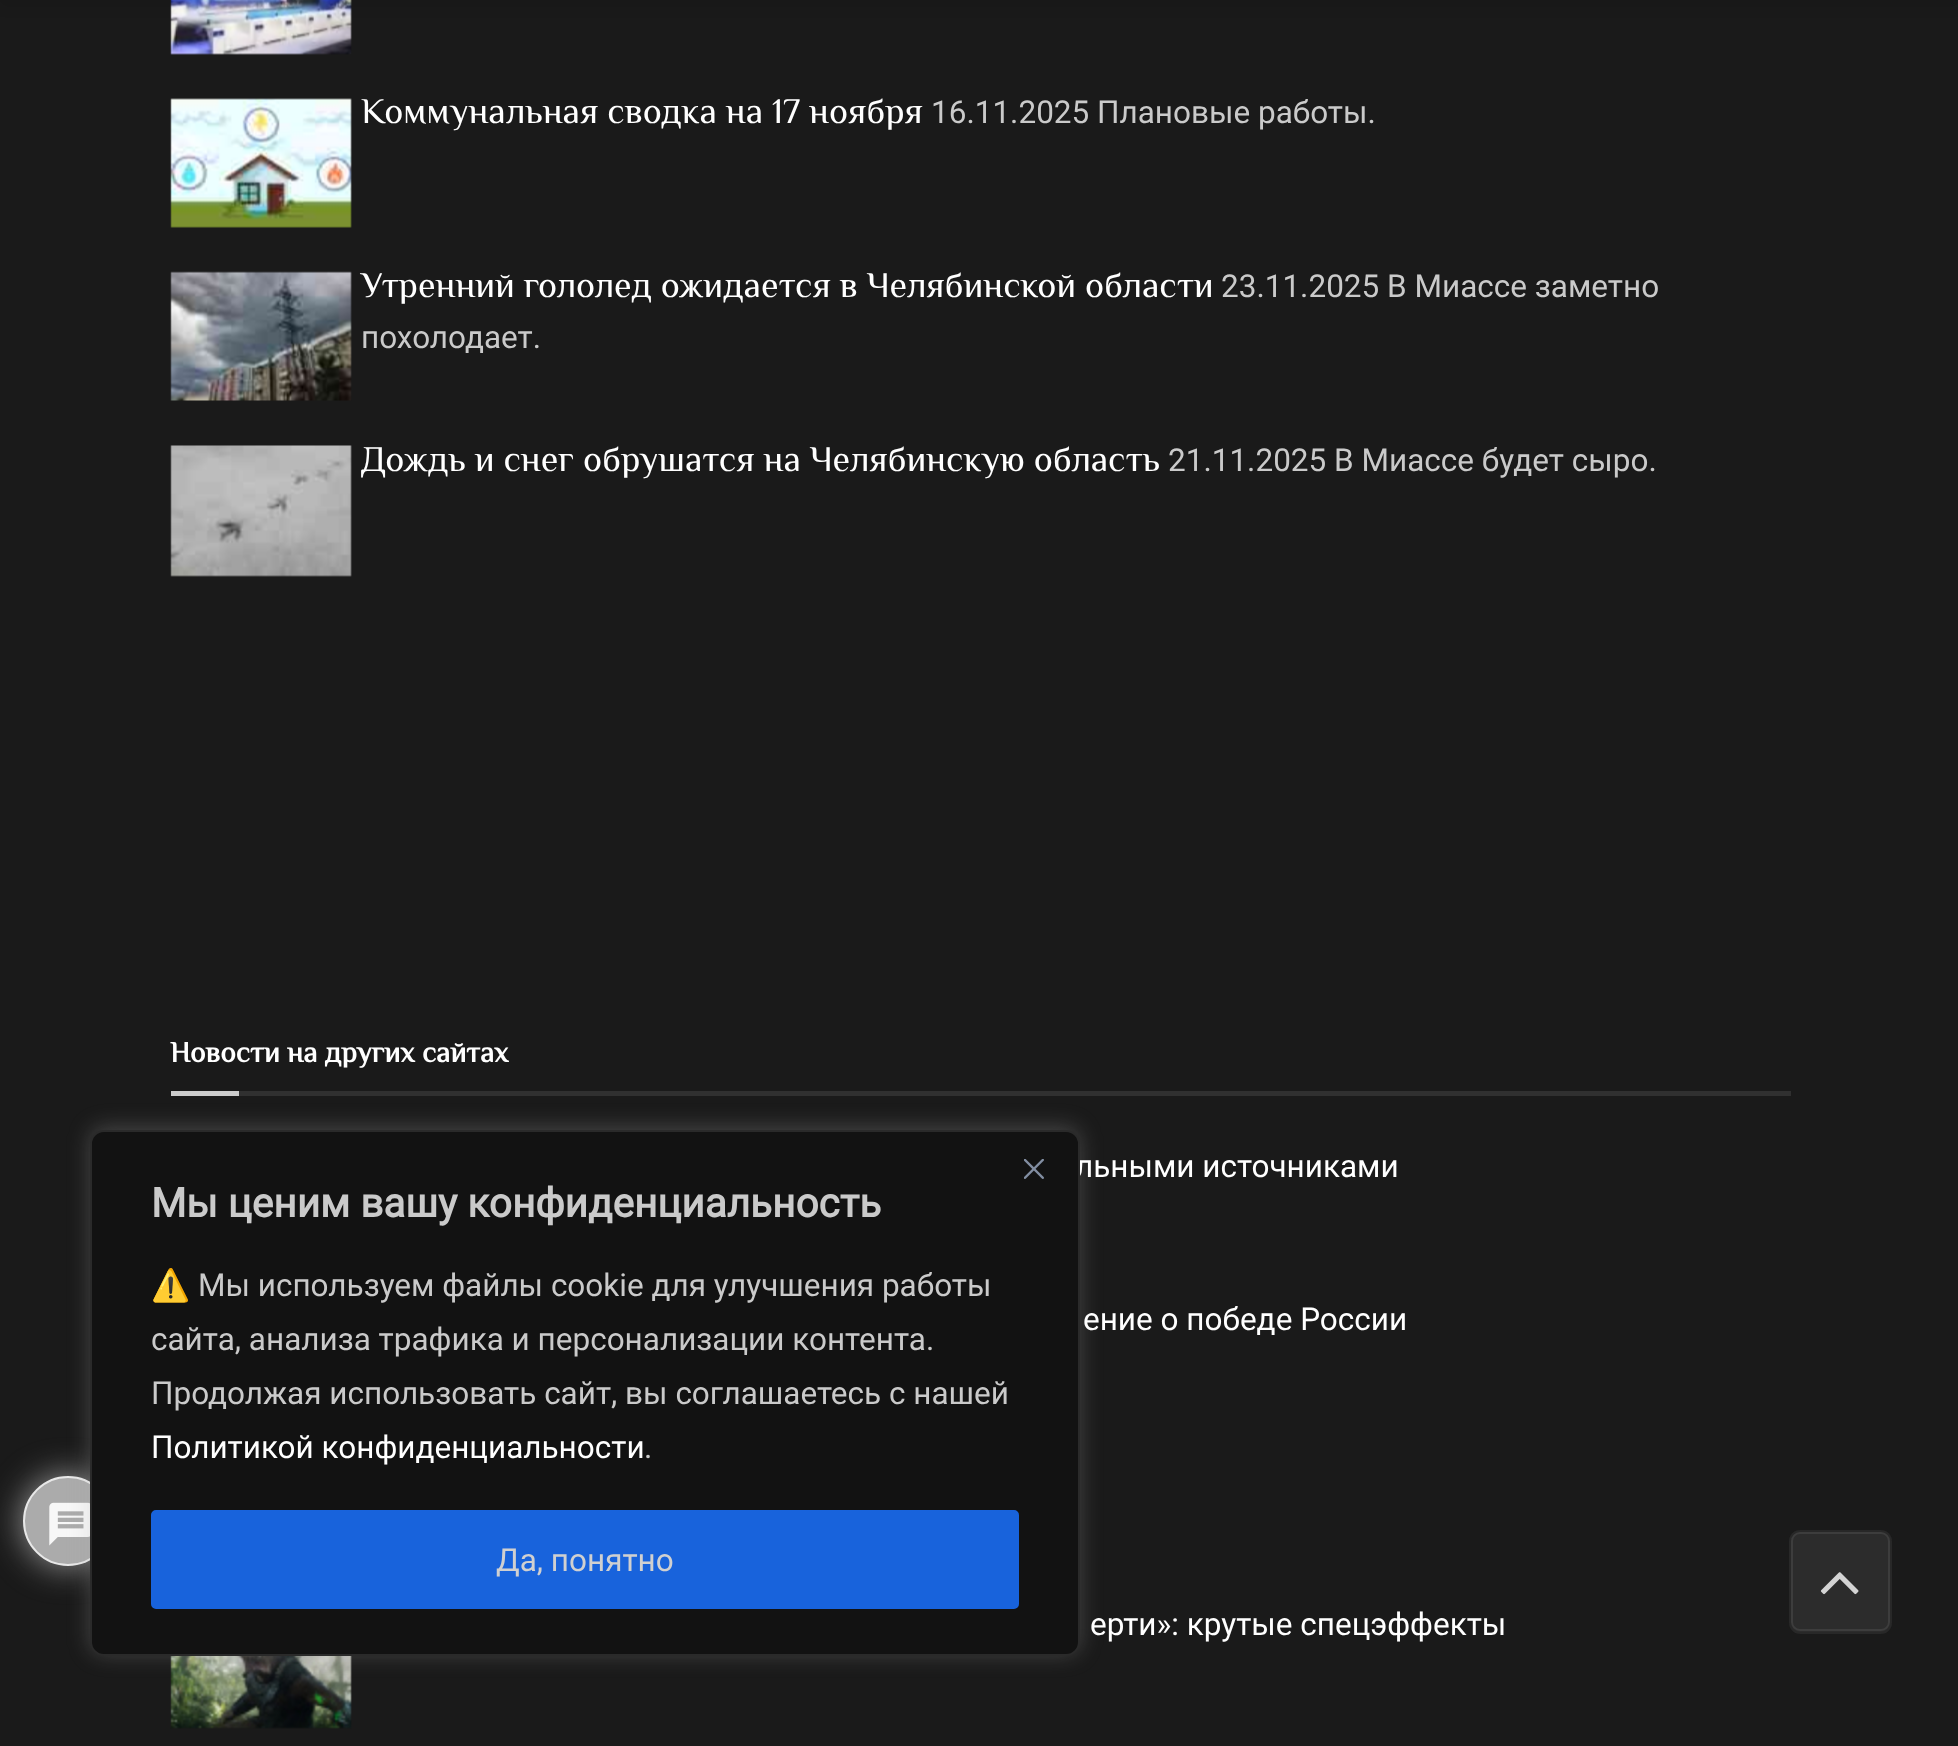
<!DOCTYPE html>
<meta charset="utf-8">
<style>body { margin: 0 } canvas { display: block }</style>
<canvas id="canvas" width="1958" height="1746"></canvas>
<img id="img1" src="img_01.png" hidden>
<img id="img2" src="img_02.png" hidden>
<img id="img3" src="img_03.png" hidden>
<img id="img4" src="img_04.png" hidden>
<img id="img5" src="img_05.png" hidden>
<img id="img6" src="img_06.png" hidden>
<img id="img7" src="img_07.png" hidden>
<img id="img8" src="img_08.png" hidden>
<script>
window.onload = function () {
	const canvas = document.getElementById("canvas");
	const ctx = canvas.getContext("2d");
	ctx.miterLimit = 4;
	ctx.fontKerning = "normal";
	function txt(s, x, y) {
		ctx.fillText(s, x, y);
	}
	function fill(x, y, w, h) {
		ctx.fillRect(x, y, w, h);
	}
	function round(x, y, w, h, r) {
		ctx.beginPath();
		ctx.roundRect(x, y, w, h, r);
		ctx.fill();
	}
	function img(id, x, y, w, h) {
		ctx.drawImage(document.getElementById(id), x, y, w, h);
	}

	ctx.fillStyle = "#1A1A1A";
	fill(0, 0, 1958, 1746);
	img("img1", 170, 0, 182, 55);
	ctx.fillStyle = "rgba(0, 0, 0, 0.1)";
	ctx.filter = "blur(7px)";
	ctx.beginPath();
	ctx.rect(0, -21, 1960, 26);
	ctx.fill();
	ctx.filter = "none";
	img("img2", 170, 98, 182, 130);
	img("img3", 170, 271, 182, 130);
	img("img4", 170, 445, 182, 132);
	ctx.fillStyle = "#303030";
	fill(239, 1091, 1552, 5);
	ctx.fillStyle = "#CCCCCC";
	fill(171, 1091, 68, 5);
	img("img5", 170, 1656, 182, 73);
	ctx.fillStyle = "#2C2C2C";
	round(1789, 1530, 103, 104, 11);
	ctx.beginPath();
	ctx.roundRect(1792, 1533, 97, 97, 8);
	ctx.strokeStyle = "#3D3D3D";
	ctx.lineWidth = 2;
	ctx.stroke();
	ctx.beginPath();
	ctx.roundRect(1790, 1531, 101, 102, 10);
	ctx.strokeStyle = "rgba(5, 5, 5, 0.11)";
	ctx.stroke();
	img("img6", 1820, 1572, 39, 23);
	ctx.fillStyle = "#9C9C9C";
	ctx.filter = "blur(17px)";
	ctx.beginPath();
	ctx.roundRect(23, 1476, 90, 90, 45);
	ctx.fill();
	ctx.filter = "none";
	ctx.fillStyle = "#ABABAB";
	ctx.beginPath();
	ctx.arc(68, 1521, 44, 0, Math.PI * 2);
	ctx.fill();
	ctx.strokeStyle = "#E8E8E8";
	ctx.stroke();
	img("img7", 49, 1502, 41, 44);
	ctx.fillStyle = "rgba(172, 171, 171, 0.3)";
	ctx.filter = "blur(11px)";
	ctx.beginPath();
	ctx.roundRect(90, 1127, 990, 527, 14);
	ctx.fill();
	ctx.filter = "none";
	ctx.font = "36px Philosopher";
	ctx.fillStyle = "#FFFFFF";
	txt("Коммунальная сводка на 17 ноября", 361, 123);
	ctx.font = "31.5px Roboto";
	ctx.fillStyle = "#CACACA";
	txt("16.11.2025 Плановые работы.", 931, 123);
	ctx.font = "36px Philosopher";
	ctx.fillStyle = "#FFFFFF";
	txt("Утренний гололед ожидается в Челябинской области", 361, 297);
	ctx.font = "31.5px Roboto";
	ctx.fillStyle = "#CACACA";
	txt("23.11.2025 В Миассе заметно", 1221, 297);
	txt("похолодает.", 361, 348);
	ctx.font = "36px Philosopher";
	ctx.fillStyle = "#FFFFFF";
	txt("Дождь и снег обрушатся на Челябинскую область", 361, 471);
	ctx.font = "31.5px Roboto";
	ctx.fillStyle = "#CACACA";
	txt("21.11.2025 В Миассе будет сыро.", 1168, 471);
	ctx.font = "bold 29.25px Philosopher";
	ctx.fillStyle = "#FFFFFF";
	txt("Новости на других сайтах", 170, 1062);
	ctx.font = "31.5px Roboto";
	txt("льными источниками", 1075, 1177);
	txt("ение о победе России", 1083, 1330);
	txt("ерти»: крутые спецэффекты", 1090, 1635);
	ctx.fillStyle = "#121212";
	ctx.beginPath();
	ctx.roundRect(91, 1131, 988, 524, 13);
	ctx.fill();
	ctx.strokeStyle = "#2A2A2A";
	ctx.stroke();
	img("img8", 1024, 1159, 20, 20);
	ctx.font = "bold 40.5px Roboto";
	ctx.fillStyle = "#CACACA";
	txt("Мы ценим вашу конфиденциальность", 151, 1217);
	ctx.font = "31.5px Noto Color Emoji";
	txt("⚠️", 151, 1296);
	ctx.font = "31.5px Roboto";
	txt("Мы используем файлы cookie для улучшения работы", 198, 1296);
	txt("сайта, анализа трафика и персонализации контента.", 151, 1350);
	txt("Продолжая использовать сайт, вы соглашаетесь с нашей", 151, 1404);
	ctx.fillStyle = "#FFFFFF";
	txt("Политикой конфиденциальности", 151, 1458);
	ctx.fillStyle = "#CACACA";
	txt(".", 644, 1458);
	ctx.fillStyle = "#1863DC";
	ctx.beginPath();
	ctx.roundRect(153.5, 1512.5, 863, 94, 2.5);
	ctx.fill();
	ctx.strokeStyle = "#1863DC";
	ctx.lineWidth = 5;
	ctx.stroke();
	ctx.fillStyle = "#D0D0D0";
	txt("Да, понятно", 496, 1571);
};
</script>
